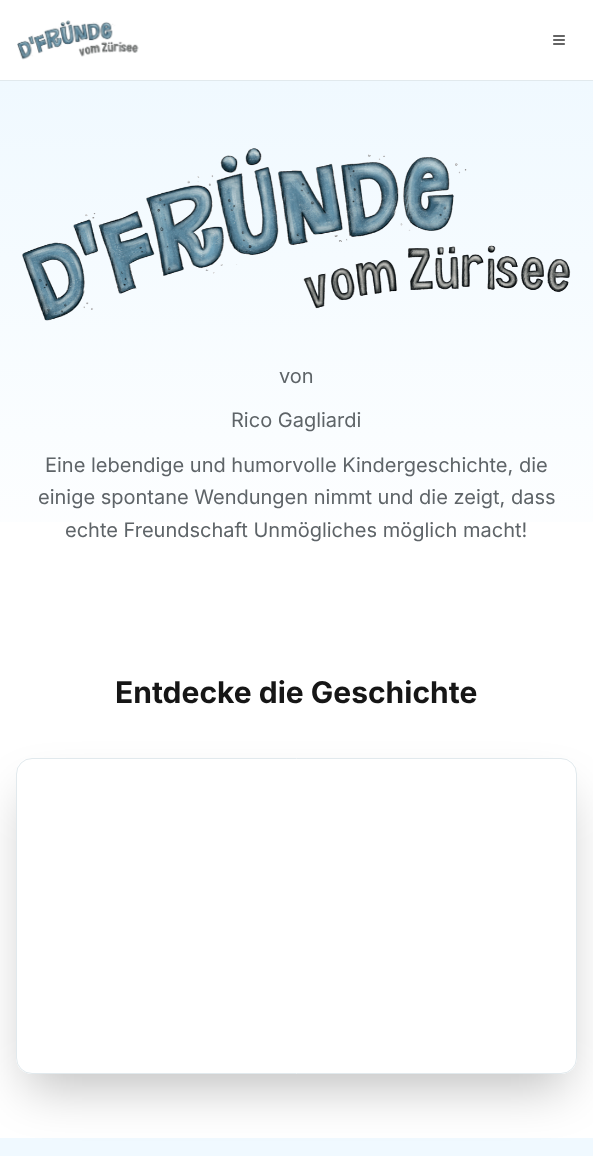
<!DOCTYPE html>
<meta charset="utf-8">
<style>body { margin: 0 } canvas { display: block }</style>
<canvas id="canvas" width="593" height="1156"></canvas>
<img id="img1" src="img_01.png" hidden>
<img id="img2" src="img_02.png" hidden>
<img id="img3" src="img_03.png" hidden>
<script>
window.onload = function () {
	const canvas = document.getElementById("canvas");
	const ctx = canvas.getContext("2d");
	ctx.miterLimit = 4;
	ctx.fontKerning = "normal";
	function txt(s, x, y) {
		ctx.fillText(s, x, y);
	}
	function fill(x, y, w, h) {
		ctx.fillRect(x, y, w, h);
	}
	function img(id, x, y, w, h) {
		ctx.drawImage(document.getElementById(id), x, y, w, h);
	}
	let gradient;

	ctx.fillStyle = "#FFFFFF";
	fill(0, 0, 593, 1156);
	ctx.fillStyle = "#E1E9ED";
	fill(0, 80, 593, 1);
	img("img1", 17, 20, 122, 40);
	img("img2", 553, 35, 12, 10);
	gradient = ctx.createLinearGradient(296, 81, 297, 610);
	gradient.addColorStop(0, "#F0F9FF");
	gradient.addColorStop(1, "#FFFFFF");
	ctx.fillStyle = gradient;
	fill(0, 81, 593, 441);
	img("img3", 22, 148, 549, 173);
	ctx.fillStyle = "#F0F9FF";
	fill(0, 1138, 593, 18);
	ctx.save();
	ctx.beginPath();
	ctx.moveTo(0, 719);
	ctx.lineTo(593, 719);
	ctx.lineTo(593, 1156);
	ctx.lineTo(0, 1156);
	ctx.closePath();
	ctx.moveTo(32, 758);
	ctx.lineTo(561, 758);
	ctx.bezierCurveTo(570, 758, 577, 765, 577, 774);
	ctx.lineTo(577, 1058);
	ctx.bezierCurveTo(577, 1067, 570, 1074, 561, 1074);
	ctx.lineTo(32, 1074);
	ctx.bezierCurveTo(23, 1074, 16, 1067, 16, 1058);
	ctx.lineTo(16, 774);
	ctx.bezierCurveTo(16, 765, 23, 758, 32, 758);
	ctx.closePath();
	ctx.clip("evenodd");
	ctx.fillStyle = "rgba(0, 0, 0, 0.25)";
	ctx.filter = "blur(25px)";
	ctx.beginPath();
	ctx.roundRect(28, 795, 537, 292, 4);
	ctx.fill();
	ctx.filter = "none";
	ctx.restore();
	ctx.beginPath();
	ctx.roundRect(16.5, 758.5, 560, 315, 15.5);
	ctx.strokeStyle = "#E1E9ED";
	ctx.stroke();
	ctx.font = "20px Inter";
	ctx.fillStyle = "#5E6468";
	txt("von", 279, 383);
	txt("Rico Gagliardi", 231, 427);
	txt("Eine lebendige und humorvolle Kindergeschichte, die", 45, 472);
	txt("einige spontane Wendungen nimmt und die zeigt, dass", 38, 504);
	txt("echte Freundschaft Unmögliches möglich macht!", 65, 537);
	ctx.font = "bold 30px Inter";
	ctx.fillStyle = "#161616";
	txt("Entdecke die Geschichte", 115, 703);
};
</script>
